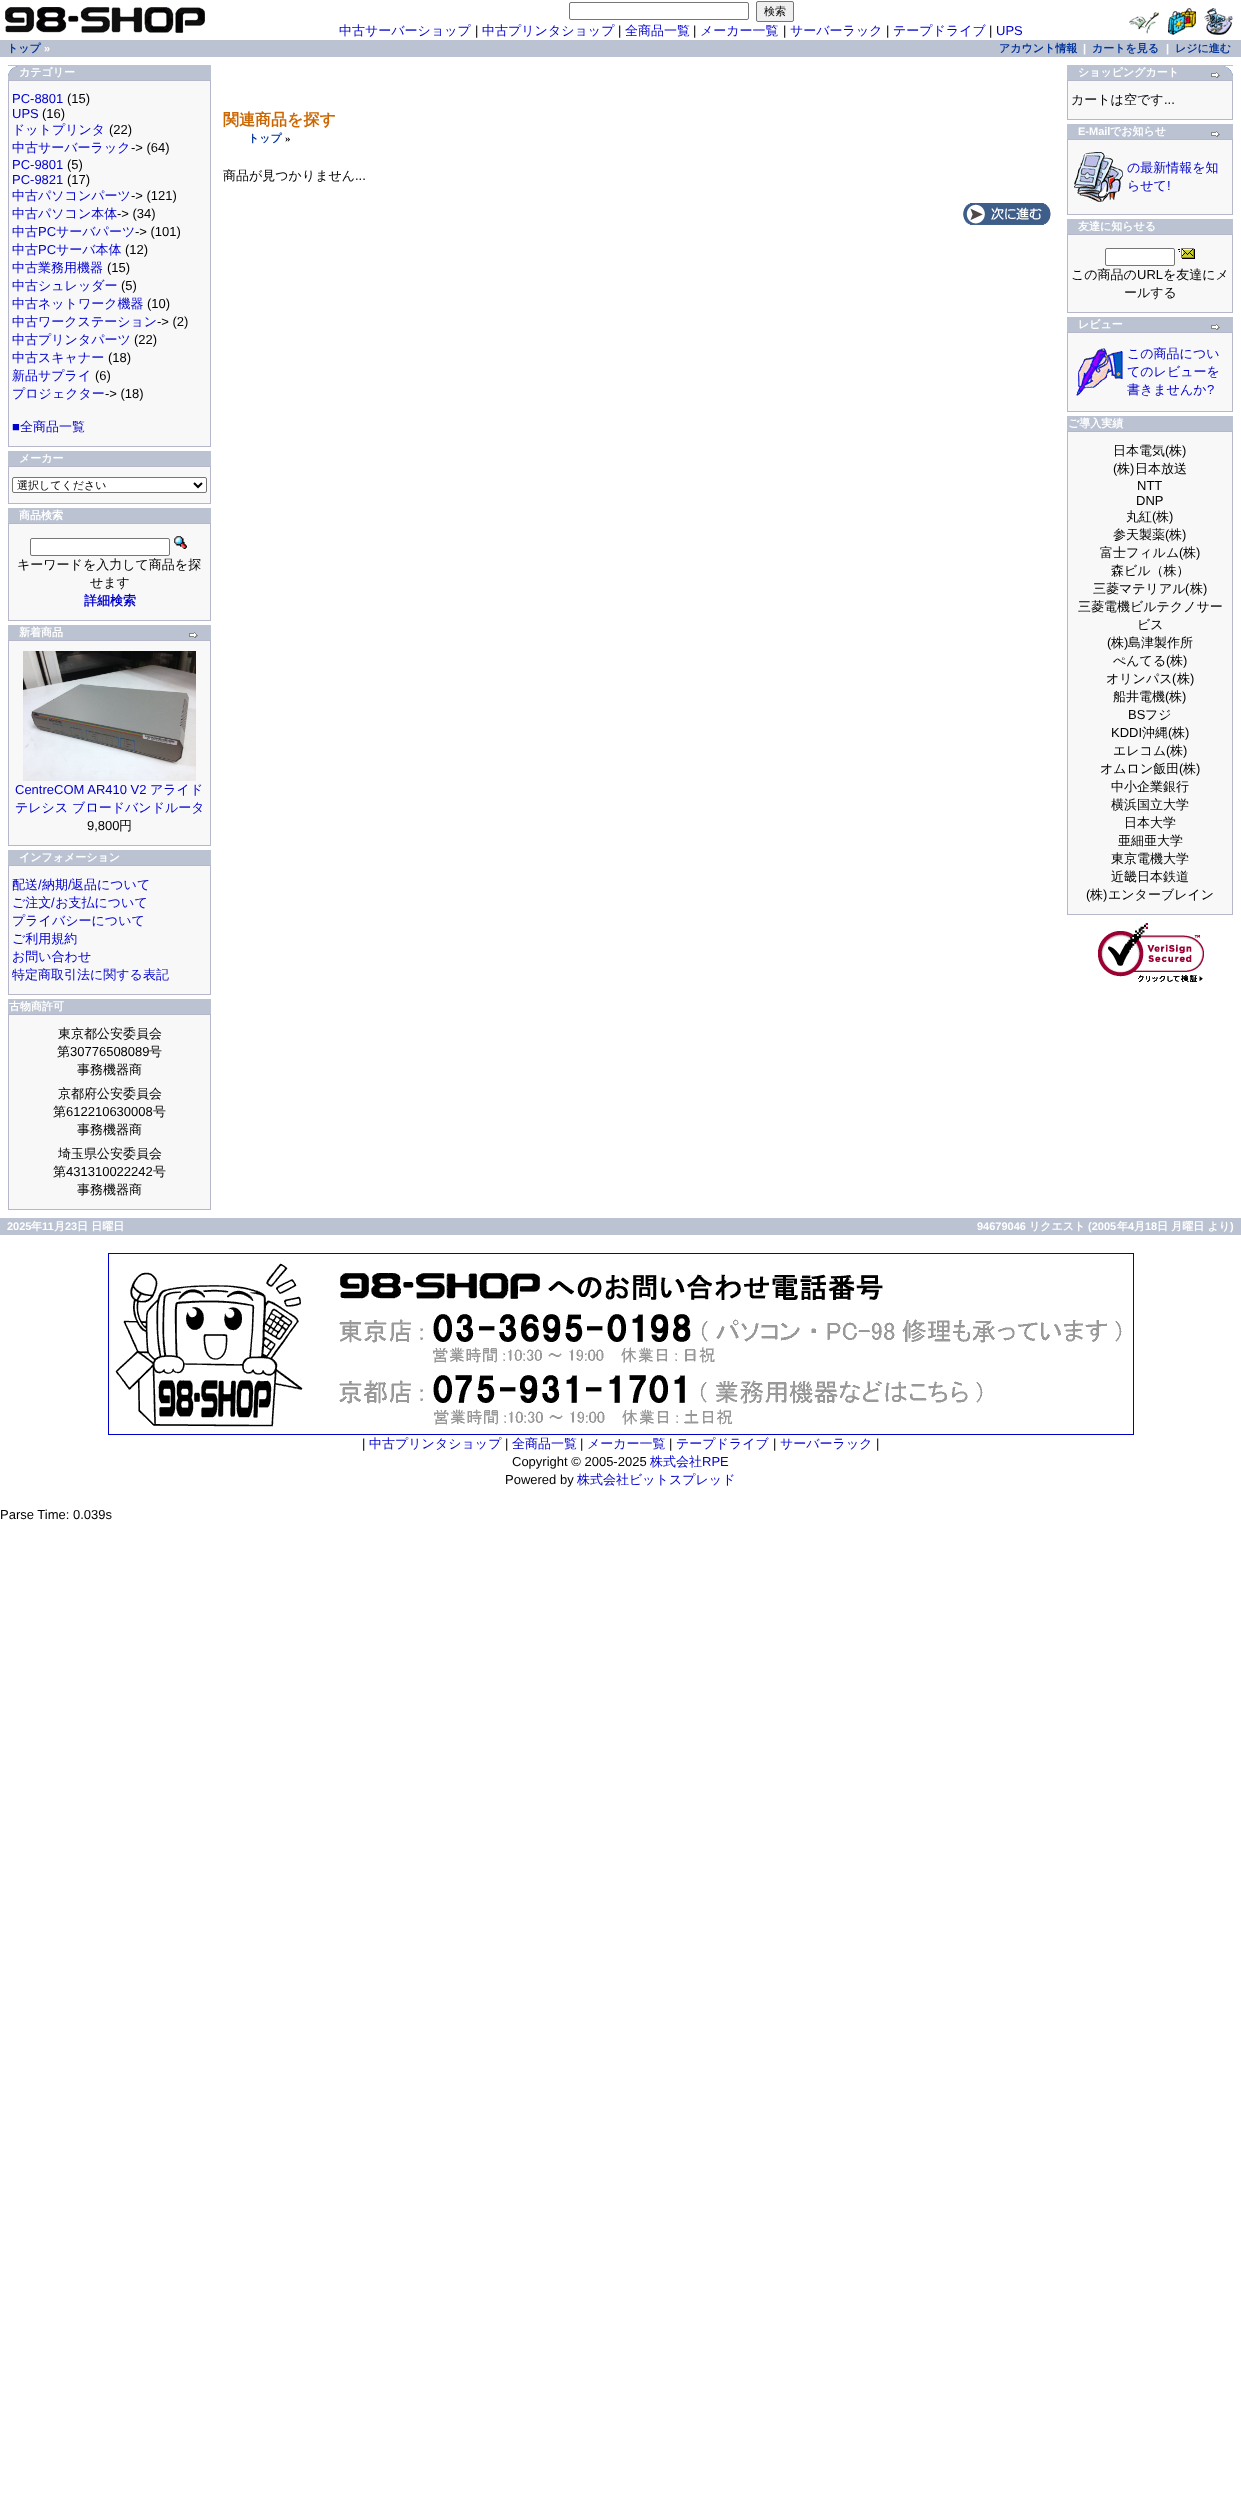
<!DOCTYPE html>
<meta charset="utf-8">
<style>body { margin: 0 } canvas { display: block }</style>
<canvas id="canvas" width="1241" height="2497"></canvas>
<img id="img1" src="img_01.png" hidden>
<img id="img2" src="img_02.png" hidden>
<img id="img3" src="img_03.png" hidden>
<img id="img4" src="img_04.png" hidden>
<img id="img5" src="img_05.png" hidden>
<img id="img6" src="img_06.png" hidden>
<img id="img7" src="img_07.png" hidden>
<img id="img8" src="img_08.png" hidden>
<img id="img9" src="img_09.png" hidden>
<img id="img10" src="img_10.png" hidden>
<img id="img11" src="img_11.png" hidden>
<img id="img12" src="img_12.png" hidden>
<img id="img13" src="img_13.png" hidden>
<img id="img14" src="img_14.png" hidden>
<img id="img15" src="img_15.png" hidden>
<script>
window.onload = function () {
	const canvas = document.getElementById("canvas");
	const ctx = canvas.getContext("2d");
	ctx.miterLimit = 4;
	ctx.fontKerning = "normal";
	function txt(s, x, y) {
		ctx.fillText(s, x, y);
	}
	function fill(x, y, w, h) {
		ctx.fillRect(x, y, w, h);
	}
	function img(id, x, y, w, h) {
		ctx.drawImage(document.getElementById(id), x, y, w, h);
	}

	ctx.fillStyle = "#FFFFFF";
	fill(0, 0, 1241, 2497);
	img("img1", 5, 7, 200, 26);
	ctx.beginPath();
	ctx.roundRect(569.5, 2.5, 179, 17, 1.5);
	ctx.strokeStyle = "#767676";
	ctx.stroke();
	ctx.fillStyle = "#EFEFEF";
	ctx.beginPath();
	ctx.roundRect(756.5, 1.5, 37, 20, 1.5);
	ctx.fill();
	ctx.stroke();
	img("img2", 1129, 12, 30, 22);
	img("img3", 1168, 8, 28, 27);
	img("img4", 1204, 8, 29, 27);
	ctx.fillStyle = "#BBC3D3";
	fill(0, 40, 1241, 17);
	fill(8, 65, 203, 15);
	img("img5", 8, 66, 10, 10);
	ctx.fillStyle = "#B6B7CB";
	fill(8, 80, 203, 367);
	ctx.fillStyle = "#F8F8F9";
	fill(9, 81, 201, 365);
	ctx.fillStyle = "#BBC3D3";
	fill(8, 451, 203, 15);
	ctx.fillStyle = "#B6B7CB";
	fill(8, 466, 203, 38);
	ctx.fillStyle = "#F8F8F9";
	fill(9, 467, 201, 36);
	ctx.fillStyle = "#FFFFFF";
	ctx.beginPath();
	ctx.roundRect(12.5, 477.5, 194, 15, 1.5);
	ctx.fill();
	ctx.stroke();
	ctx.beginPath();
	ctx.moveTo(194, 483);
	ctx.lineTo(198, 487);
	ctx.lineTo(202, 483);
	ctx.strokeStyle = "#000000";
	ctx.lineWidth = 2;
	ctx.stroke();
	ctx.fillStyle = "#BBC3D3";
	fill(8, 508, 203, 15);
	ctx.fillStyle = "#B6B7CB";
	fill(8, 523, 203, 98);
	ctx.fillStyle = "#F8F8F9";
	fill(9, 524, 201, 96);
	ctx.fillStyle = "#FFFFFF";
	ctx.beginPath();
	ctx.roundRect(30.5, 538.5, 139, 17, 1.5);
	ctx.fill();
	ctx.strokeStyle = "#767676";
	ctx.lineWidth = 1;
	ctx.stroke();
	img("img6", 174, 536, 13, 13);
	ctx.fillStyle = "#BBC3D3";
	fill(8, 625, 203, 15);
	img("img7", 189, 632, 9, 6);
	ctx.fillStyle = "#B6B7CB";
	fill(8, 640, 203, 206);
	ctx.fillStyle = "#F8F8F9";
	fill(9, 641, 201, 204);
	img("img8", 23, 651, 173, 130);
	ctx.fillStyle = "#BBC3D3";
	fill(8, 850, 203, 15);
	ctx.fillStyle = "#B6B7CB";
	fill(8, 865, 203, 130);
	ctx.fillStyle = "#F8F8F9";
	fill(9, 866, 201, 128);
	ctx.fillStyle = "#BBC3D3";
	fill(8, 999, 203, 15);
	ctx.fillStyle = "#B6B7CB";
	fill(8, 1014, 203, 196);
	ctx.fillStyle = "#F8F8F9";
	fill(9, 1015, 201, 194);
	ctx.fillStyle = "#BBC3D3";
	fill(1067, 65, 166, 15);
	img("img7", 1211, 72, 9, 6);
	img("img9", 1223, 66, 10, 10);
	ctx.fillStyle = "#B6B7CB";
	fill(1067, 80, 166, 40);
	ctx.fillStyle = "#F8F8F9";
	fill(1068, 81, 164, 38);
	ctx.fillStyle = "#BBC3D3";
	fill(1067, 124, 166, 15);
	img("img7", 1211, 131, 9, 6);
	ctx.fillStyle = "#B6B7CB";
	fill(1067, 139, 166, 76);
	ctx.fillStyle = "#F8F8F9";
	fill(1068, 140, 164, 74);
	img("img10", 1074, 152, 49, 50);
	ctx.fillStyle = "#BBC3D3";
	fill(1067, 219, 166, 15);
	ctx.fillStyle = "#B6B7CB";
	fill(1067, 234, 166, 79);
	ctx.fillStyle = "#F8F8F9";
	fill(1068, 235, 164, 77);
	ctx.fillStyle = "#FFFFFF";
	ctx.beginPath();
	ctx.roundRect(1105.5, 248.5, 69, 17, 1.5);
	ctx.fill();
	ctx.stroke();
	img("img11", 1178, 248, 17, 11);
	ctx.fillStyle = "#BBC3D3";
	fill(1067, 317, 166, 15);
	img("img7", 1211, 324, 9, 6);
	ctx.fillStyle = "#B6B7CB";
	fill(1067, 332, 166, 80);
	ctx.fillStyle = "#F8F8F9";
	fill(1068, 333, 164, 78);
	img("img12", 1076, 348, 47, 48);
	ctx.fillStyle = "#BBC3D3";
	fill(1067, 416, 166, 15);
	ctx.fillStyle = "#B6B7CB";
	fill(1067, 431, 166, 484);
	ctx.fillStyle = "#F8F8F9";
	fill(1068, 432, 164, 482);
	img("img13", 1098, 923, 106, 59);
	img("img14", 963, 203, 88, 22);
	ctx.fillStyle = "#BBC3D3";
	fill(0, 1218, 1241, 17);
	ctx.strokeStyle = "#0000CC";
	ctx.strokeRect(108.5, 1253.5, 1025, 181);
	img("img15", 115, 1263, 1007, 164);
	ctx.font = "500 11px WenQuanYi Zen Hei";
	ctx.fillStyle = "#000000";
	txt("検索", 764, 15);
	ctx.font = "500 13px WenQuanYi Zen Hei";
	ctx.fillStyle = "#0000CC";
	txt("中古サーバーショップ", 339, 35);
	ctx.font = "13px Liberation Sans";
	ctx.fillStyle = "#000000";
	txt("|", 475, 35);
	ctx.font = "500 13px WenQuanYi Zen Hei";
	ctx.fillStyle = "#0000CC";
	txt("中古プリンタショップ", 482, 35);
	ctx.font = "13px Liberation Sans";
	ctx.fillStyle = "#000000";
	txt("|", 618, 35);
	ctx.font = "500 13px WenQuanYi Zen Hei";
	ctx.fillStyle = "#0000CC";
	txt("全商品一覧", 625, 35);
	ctx.font = "13px Liberation Sans";
	ctx.fillStyle = "#000000";
	txt("|", 693, 35);
	ctx.font = "500 13px WenQuanYi Zen Hei";
	ctx.fillStyle = "#0000CC";
	txt("メーカー一覧", 700, 35);
	ctx.font = "13px Liberation Sans";
	ctx.fillStyle = "#000000";
	txt("|", 783, 35);
	ctx.font = "500 13px WenQuanYi Zen Hei";
	ctx.fillStyle = "#0000CC";
	txt("サーバーラック", 790, 35);
	ctx.font = "13px Liberation Sans";
	ctx.fillStyle = "#000000";
	txt("|", 886, 35);
	ctx.font = "500 13px WenQuanYi Zen Hei";
	ctx.fillStyle = "#0000CC";
	txt("テープドライブ", 893, 35);
	ctx.font = "13px Liberation Sans";
	ctx.fillStyle = "#000000";
	txt("|", 989, 35);
	ctx.fillStyle = "#0000CC";
	txt("UPS", 996, 35);
	ctx.font = "bold 11px WenQuanYi Zen Hei";
	ctx.fillStyle = "#003399";
	txt("トップ", 7, 52);
	ctx.font = "bold 11px Liberation Sans";
	ctx.fillStyle = "#FFFFFF";
	txt("»", 44, 52);
	ctx.font = "bold 11px WenQuanYi Zen Hei";
	ctx.fillStyle = "#003399";
	txt("アカウント情報", 999, 52);
	ctx.font = "bold 11px Liberation Sans";
	ctx.fillStyle = "#FFFFFF";
	txt("|", 1083, 52);
	ctx.font = "bold 11px WenQuanYi Zen Hei";
	ctx.fillStyle = "#003399";
	txt("カートを見る", 1092, 52);
	ctx.font = "bold 11px Liberation Sans";
	ctx.fillStyle = "#FFFFFF";
	txt("|", 1166, 52);
	ctx.font = "bold 11px WenQuanYi Zen Hei";
	ctx.fillStyle = "#003399";
	txt("レジに進む", 1175, 52);
	ctx.fillStyle = "#FFFFFF";
	txt("カテゴリー", 19, 76);
	ctx.font = "13px Liberation Sans";
	ctx.fillStyle = "#0000CC";
	txt("PC-8801", 12, 103);
	ctx.fillStyle = "#000000";
	txt("(15)", 67, 103);
	ctx.fillStyle = "#0000CC";
	txt("UPS", 12, 118);
	ctx.fillStyle = "#000000";
	txt("(16)", 42, 118);
	ctx.font = "500 13px WenQuanYi Zen Hei";
	ctx.fillStyle = "#0000CC";
	txt("ドットプリンタ", 12, 134);
	ctx.font = "13px Liberation Sans";
	ctx.fillStyle = "#000000";
	txt("(22)", 109, 134);
	ctx.font = "500 13px WenQuanYi Zen Hei";
	ctx.fillStyle = "#0000CC";
	txt("中古サーバーラック", 12, 152);
	ctx.font = "13px Liberation Sans";
	ctx.fillStyle = "#000000";
	txt("-> (64)", 131, 152);
	ctx.fillStyle = "#0000CC";
	txt("PC-9801", 12, 169);
	ctx.fillStyle = "#000000";
	txt("(5)", 67, 169);
	ctx.fillStyle = "#0000CC";
	txt("PC-9821", 12, 184);
	ctx.fillStyle = "#000000";
	txt("(17)", 67, 184);
	ctx.font = "500 13px WenQuanYi Zen Hei";
	ctx.fillStyle = "#0000CC";
	txt("中古パソコンパーツ", 12, 200);
	ctx.font = "13px Liberation Sans";
	ctx.fillStyle = "#000000";
	txt("-> (121)", 131, 200);
	ctx.font = "500 13px WenQuanYi Zen Hei";
	ctx.fillStyle = "#0000CC";
	txt("中古パソコン本体", 12, 218);
	ctx.font = "13px Liberation Sans";
	ctx.fillStyle = "#000000";
	txt("-> (34)", 117, 218);
	ctx.font = "500 13px WenQuanYi Zen Hei";
	ctx.fillStyle = "#0000CC";
	txt("中古", 12, 236);
	ctx.font = "13px Liberation Sans";
	txt("PC", 38, 236);
	ctx.font = "500 13px WenQuanYi Zen Hei";
	txt("サーバパーツ", 56, 236);
	ctx.font = "13px Liberation Sans";
	ctx.fillStyle = "#000000";
	txt("-> (101)", 135, 236);
	ctx.font = "500 13px WenQuanYi Zen Hei";
	ctx.fillStyle = "#0000CC";
	txt("中古", 12, 254);
	ctx.font = "13px Liberation Sans";
	txt("PC", 38, 254);
	ctx.font = "500 13px WenQuanYi Zen Hei";
	txt("サーバ本体", 56, 254);
	ctx.font = "13px Liberation Sans";
	ctx.fillStyle = "#000000";
	txt("(12)", 125, 254);
	ctx.font = "500 13px WenQuanYi Zen Hei";
	ctx.fillStyle = "#0000CC";
	txt("中古業務用機器", 12, 272);
	ctx.font = "13px Liberation Sans";
	ctx.fillStyle = "#000000";
	txt("(15)", 107, 272);
	ctx.font = "500 13px WenQuanYi Zen Hei";
	ctx.fillStyle = "#0000CC";
	txt("中古シュレッダー", 12, 290);
	ctx.font = "13px Liberation Sans";
	ctx.fillStyle = "#000000";
	txt("(5)", 121, 290);
	ctx.font = "500 13px WenQuanYi Zen Hei";
	ctx.fillStyle = "#0000CC";
	txt("中古ネットワーク機器", 12, 308);
	ctx.font = "13px Liberation Sans";
	ctx.fillStyle = "#000000";
	txt("(10)", 147, 308);
	ctx.font = "500 13px WenQuanYi Zen Hei";
	ctx.fillStyle = "#0000CC";
	txt("中古ワークステーション", 12, 326);
	ctx.font = "13px Liberation Sans";
	ctx.fillStyle = "#000000";
	txt("-> (2)", 157, 326);
	ctx.font = "500 13px WenQuanYi Zen Hei";
	ctx.fillStyle = "#0000CC";
	txt("中古プリンタパーツ", 12, 344);
	ctx.font = "13px Liberation Sans";
	ctx.fillStyle = "#000000";
	txt("(22)", 134, 344);
	ctx.font = "500 13px WenQuanYi Zen Hei";
	ctx.fillStyle = "#0000CC";
	txt("中古スキャナー", 12, 362);
	ctx.font = "13px Liberation Sans";
	ctx.fillStyle = "#000000";
	txt("(18)", 108, 362);
	ctx.font = "500 13px WenQuanYi Zen Hei";
	ctx.fillStyle = "#0000CC";
	txt("新品サプライ", 12, 380);
	ctx.font = "13px Liberation Sans";
	ctx.fillStyle = "#000000";
	txt("(6)", 95, 380);
	ctx.font = "500 13px WenQuanYi Zen Hei";
	ctx.fillStyle = "#0000CC";
	txt("プロジェクター", 12, 398);
	ctx.font = "13px Liberation Sans";
	ctx.fillStyle = "#000000";
	txt("-> (18)", 105, 398);
	ctx.fillStyle = "#0000CC";
	txt("■", 12, 431);
	ctx.font = "500 13px WenQuanYi Zen Hei";
	txt("全商品一覧", 20, 431);
	ctx.font = "bold 11px WenQuanYi Zen Hei";
	ctx.fillStyle = "#FFFFFF";
	txt("メーカー", 19, 462);
	ctx.font = "500 11px WenQuanYi Zen Hei";
	ctx.fillStyle = "#000000";
	txt("選択してください", 17, 489);
	ctx.font = "bold 11px WenQuanYi Zen Hei";
	ctx.fillStyle = "#FFFFFF";
	txt("商品検索", 19, 519);
	ctx.font = "500 13px WenQuanYi Zen Hei";
	ctx.fillStyle = "#000000";
	txt("キーワードを入力して商品を探", 17, 569);
	txt("せます", 90, 587);
	ctx.font = "bold 13px WenQuanYi Zen Hei";
	ctx.fillStyle = "#0000CC";
	txt("詳細検索", 84, 605);
	ctx.font = "bold 11px WenQuanYi Zen Hei";
	ctx.fillStyle = "#FFFFFF";
	txt("新着商品", 19, 636);
	ctx.font = "13px Liberation Sans";
	ctx.fillStyle = "#0000CC";
	txt("CentreCOM AR410 V2", 15, 794);
	ctx.font = "500 13px WenQuanYi Zen Hei";
	txt("アライド", 150, 794);
	txt("テレシス ブロードバンドルータ", 15, 812);
	ctx.font = "13px Liberation Sans";
	ctx.fillStyle = "#000000";
	txt("9,800", 87, 830);
	ctx.font = "500 13px WenQuanYi Zen Hei";
	txt("円", 119, 830);
	ctx.font = "bold 11px WenQuanYi Zen Hei";
	ctx.fillStyle = "#FFFFFF";
	txt("インフォメーション", 19, 861);
	ctx.font = "500 13px WenQuanYi Zen Hei";
	ctx.fillStyle = "#0000CC";
	txt("配送", 12, 889);
	ctx.font = "13px Liberation Sans";
	txt("/", 38, 889);
	ctx.font = "500 13px WenQuanYi Zen Hei";
	txt("納期", 42, 889);
	ctx.font = "13px Liberation Sans";
	txt("/", 68, 889);
	ctx.font = "500 13px WenQuanYi Zen Hei";
	txt("返品について", 71, 889);
	txt("ご注文 お支払について", 12, 907);
	ctx.font = "13px Liberation Sans";
	txt("/", 51, 907);
	ctx.font = "500 13px WenQuanYi Zen Hei";
	txt("プライバシーについて", 12, 925);
	txt("ご利用規約", 12, 943);
	txt("お問い合わせ", 12, 961);
	txt("特定商取引法に関する表記", 12, 979);
	ctx.font = "bold 11px WenQuanYi Zen Hei";
	ctx.fillStyle = "#FFFFFF";
	txt("古物商許可", 9, 1010);
	ctx.font = "500 13px WenQuanYi Zen Hei";
	ctx.fillStyle = "#000000";
	txt("東京都公安委員会", 58, 1038);
	txt("第", 57, 1056);
	ctx.font = "13px Liberation Sans";
	txt("30776508089", 70, 1056);
	ctx.font = "500 13px WenQuanYi Zen Hei";
	txt("号", 149, 1056);
	txt("事務機器商", 77, 1074);
	txt("京都府公安委員会", 58, 1098);
	txt("第", 53, 1116);
	ctx.font = "13px Liberation Sans";
	txt("612210630008", 66, 1116);
	ctx.font = "500 13px WenQuanYi Zen Hei";
	txt("号", 153, 1116);
	txt("事務機器商", 77, 1134);
	txt("埼玉県公安委員会", 58, 1158);
	txt("第", 53, 1176);
	ctx.font = "13px Liberation Sans";
	txt("431310022242", 66, 1176);
	ctx.font = "500 13px WenQuanYi Zen Hei";
	txt("号", 153, 1176);
	txt("事務機器商", 77, 1194);
	ctx.font = "bold 11px WenQuanYi Zen Hei";
	ctx.fillStyle = "#FFFFFF";
	txt("ショッピングカート", 1078, 76);
	ctx.font = "500 13px WenQuanYi Zen Hei";
	ctx.fillStyle = "#000000";
	txt("カートは空です", 1071, 104);
	ctx.font = "13px Liberation Sans";
	txt("...", 1164, 104);
	ctx.font = "bold 11px Liberation Sans";
	ctx.fillStyle = "#FFFFFF";
	txt("E-Mail", 1078, 135);
	ctx.font = "bold 11px WenQuanYi Zen Hei";
	txt("でお知らせ", 1110, 135);
	ctx.font = "500 13px WenQuanYi Zen Hei";
	ctx.fillStyle = "#0000CC";
	txt("の最新情報を知", 1127, 172);
	txt("らせて", 1127, 190);
	ctx.font = "13px Liberation Sans";
	txt("!", 1167, 190);
	ctx.font = "bold 11px WenQuanYi Zen Hei";
	ctx.fillStyle = "#FFFFFF";
	txt("友達に知らせる", 1078, 230);
	ctx.font = "500 13px WenQuanYi Zen Hei";
	ctx.fillStyle = "#000000";
	txt("この商品の", 1071, 279);
	ctx.font = "13px Liberation Sans";
	txt("URL", 1137, 279);
	ctx.font = "500 13px WenQuanYi Zen Hei";
	txt("を友達にメ", 1163, 279);
	txt("ールする", 1124, 297);
	ctx.font = "bold 11px WenQuanYi Zen Hei";
	ctx.fillStyle = "#FFFFFF";
	txt("レビュー", 1078, 328);
	ctx.font = "500 13px WenQuanYi Zen Hei";
	ctx.fillStyle = "#0000CC";
	txt("この商品につい", 1127, 358);
	txt("てのレビューを", 1127, 376);
	txt("書きませんか", 1127, 394);
	ctx.font = "13px Liberation Sans";
	txt("?", 1207, 394);
	ctx.font = "bold 11px WenQuanYi Zen Hei";
	ctx.fillStyle = "#FFFFFF";
	txt("ご導入実績", 1068, 427);
	ctx.font = "500 13px WenQuanYi Zen Hei";
	ctx.fillStyle = "#000000";
	txt("日本電気", 1113, 455);
	ctx.font = "13px Liberation Sans";
	txt("(", 1165, 455);
	ctx.font = "500 13px WenQuanYi Zen Hei";
	txt("株", 1169, 455);
	ctx.font = "13px Liberation Sans";
	txt(")", 1182, 455);
	txt("(", 1113, 473);
	ctx.font = "500 13px WenQuanYi Zen Hei";
	txt("株", 1117, 473);
	ctx.font = "13px Liberation Sans";
	txt(")", 1130, 473);
	ctx.font = "500 13px WenQuanYi Zen Hei";
	txt("日本放送", 1135, 473);
	ctx.font = "13px Liberation Sans";
	txt("NTT", 1137, 490);
	txt("DNP", 1136, 505);
	ctx.font = "500 13px WenQuanYi Zen Hei";
	txt("丸紅", 1126, 521);
	ctx.font = "13px Liberation Sans";
	txt("(", 1152, 521);
	ctx.font = "500 13px WenQuanYi Zen Hei";
	txt("株", 1156, 521);
	ctx.font = "13px Liberation Sans";
	txt(")", 1169, 521);
	ctx.font = "500 13px WenQuanYi Zen Hei";
	txt("参天製薬", 1113, 539);
	ctx.font = "13px Liberation Sans";
	txt("(", 1165, 539);
	ctx.font = "500 13px WenQuanYi Zen Hei";
	txt("株", 1169, 539);
	ctx.font = "13px Liberation Sans";
	txt(")", 1182, 539);
	ctx.font = "500 13px WenQuanYi Zen Hei";
	txt("富士フィルム", 1100, 557);
	ctx.font = "13px Liberation Sans";
	txt("(", 1179, 557);
	ctx.font = "500 13px WenQuanYi Zen Hei";
	txt("株", 1183, 557);
	ctx.font = "13px Liberation Sans";
	txt(")", 1196, 557);
	ctx.font = "500 13px WenQuanYi Zen Hei";
	txt("森ビル（株）", 1111, 575);
	txt("三菱マテリアル", 1093, 593);
	ctx.font = "13px Liberation Sans";
	txt("(", 1185, 593);
	ctx.font = "500 13px WenQuanYi Zen Hei";
	txt("株", 1190, 593);
	ctx.font = "13px Liberation Sans";
	txt(")", 1203, 593);
	ctx.font = "500 13px WenQuanYi Zen Hei";
	txt("三菱電機ビルテクノサー", 1078, 611);
	txt("ビス", 1137, 629);
	ctx.font = "13px Liberation Sans";
	txt("(", 1107, 647);
	ctx.font = "500 13px WenQuanYi Zen Hei";
	txt("株", 1111, 647);
	ctx.font = "13px Liberation Sans";
	txt(")", 1124, 647);
	ctx.font = "500 13px WenQuanYi Zen Hei";
	txt("島津製作所", 1128, 647);
	txt("ぺんてる", 1113, 665);
	ctx.font = "13px Liberation Sans";
	txt("(", 1166, 665);
	ctx.font = "500 13px WenQuanYi Zen Hei";
	txt("株", 1170, 665);
	ctx.font = "13px Liberation Sans";
	txt(")", 1183, 665);
	ctx.font = "500 13px WenQuanYi Zen Hei";
	txt("オリンパス", 1106, 683);
	ctx.font = "13px Liberation Sans";
	txt("(", 1172, 683);
	ctx.font = "500 13px WenQuanYi Zen Hei";
	txt("株", 1177, 683);
	ctx.font = "13px Liberation Sans";
	txt(")", 1190, 683);
	ctx.font = "500 13px WenQuanYi Zen Hei";
	txt("船井電機", 1113, 701);
	ctx.font = "13px Liberation Sans";
	txt("(", 1165, 701);
	ctx.font = "500 13px WenQuanYi Zen Hei";
	txt("株", 1169, 701);
	ctx.font = "13px Liberation Sans";
	txt(")", 1182, 701);
	txt("BS", 1128, 719);
	ctx.font = "500 13px WenQuanYi Zen Hei";
	txt("フジ", 1145, 719);
	ctx.font = "13px Liberation Sans";
	txt("KDDI", 1111, 737);
	ctx.font = "500 13px WenQuanYi Zen Hei";
	txt("沖縄", 1142, 737);
	ctx.font = "13px Liberation Sans";
	txt("(", 1168, 737);
	ctx.font = "500 13px WenQuanYi Zen Hei";
	txt("株", 1172, 737);
	ctx.font = "13px Liberation Sans";
	txt(")", 1185, 737);
	ctx.font = "500 13px WenQuanYi Zen Hei";
	txt("エレコム", 1113, 755);
	ctx.font = "13px Liberation Sans";
	txt("(", 1166, 755);
	ctx.font = "500 13px WenQuanYi Zen Hei";
	txt("株", 1170, 755);
	ctx.font = "13px Liberation Sans";
	txt(")", 1183, 755);
	ctx.font = "500 13px WenQuanYi Zen Hei";
	txt("オムロン飯田", 1100, 773);
	ctx.font = "13px Liberation Sans";
	txt("(", 1179, 773);
	ctx.font = "500 13px WenQuanYi Zen Hei";
	txt("株", 1183, 773);
	ctx.font = "13px Liberation Sans";
	txt(")", 1196, 773);
	ctx.font = "500 13px WenQuanYi Zen Hei";
	txt("中小企業銀行", 1111, 791);
	txt("横浜国立大学", 1111, 809);
	txt("日本大学", 1124, 827);
	txt("亜細亜大学", 1118, 845);
	txt("東京電機大学", 1111, 863);
	txt("近畿日本鉄道", 1111, 881);
	ctx.font = "13px Liberation Sans";
	txt("(", 1086, 899);
	ctx.font = "500 13px WenQuanYi Zen Hei";
	txt("株", 1090, 899);
	ctx.font = "13px Liberation Sans";
	txt(")", 1103, 899);
	ctx.font = "500 13px WenQuanYi Zen Hei";
	txt("エンターブレイン", 1108, 899);
	ctx.font = "bold 16px WenQuanYi Zen Hei";
	ctx.fillStyle = "#CC6600";
	txt("関連商品を探す", 223, 125);
	ctx.font = "bold 11px WenQuanYi Zen Hei";
	ctx.fillStyle = "#003399";
	txt("トップ", 248, 142);
	ctx.font = "bold 11px Liberation Serif";
	ctx.fillStyle = "#000000";
	txt("»", 285, 142);
	ctx.font = "500 13px WenQuanYi Zen Hei";
	txt("商品が見つかりません", 223, 180);
	ctx.font = "13px Liberation Sans";
	txt("...", 355, 180);
	ctx.font = "bold 11px Liberation Sans";
	ctx.fillStyle = "#FFFFFF";
	txt("2025", 7, 1230);
	ctx.font = "bold 11px WenQuanYi Zen Hei";
	txt("年", 31, 1230);
	ctx.font = "bold 11px Liberation Sans";
	txt("11", 42, 1230);
	ctx.font = "bold 11px WenQuanYi Zen Hei";
	txt("月", 54, 1230);
	ctx.font = "bold 11px Liberation Sans";
	txt("23", 65, 1230);
	ctx.font = "bold 11px WenQuanYi Zen Hei";
	txt("日 日曜日", 77, 1230);
	ctx.font = "bold 11px Liberation Sans";
	txt("94679046", 977, 1230);
	ctx.font = "bold 11px WenQuanYi Zen Hei";
	txt("リクエスト", 1029, 1230);
	ctx.font = "bold 11px Liberation Sans";
	txt("(2005", 1088, 1230);
	ctx.font = "bold 11px WenQuanYi Zen Hei";
	txt("年", 1117, 1230);
	ctx.font = "bold 11px Liberation Sans";
	txt("4", 1128, 1230);
	ctx.font = "bold 11px WenQuanYi Zen Hei";
	txt("月", 1134, 1230);
	ctx.font = "bold 11px Liberation Sans";
	txt("18", 1145, 1230);
	ctx.font = "bold 11px WenQuanYi Zen Hei";
	txt("日 月曜日 より", 1157, 1230);
	ctx.font = "bold 11px Liberation Sans";
	txt(")", 1230, 1230);
	ctx.font = "13px Liberation Sans";
	ctx.fillStyle = "#000000";
	txt("|", 362, 1448);
	ctx.font = "500 13px WenQuanYi Zen Hei";
	ctx.fillStyle = "#0000CC";
	txt("中古プリンタショップ", 369, 1448);
	ctx.font = "13px Liberation Sans";
	ctx.fillStyle = "#000000";
	txt("|", 505, 1448);
	ctx.font = "500 13px WenQuanYi Zen Hei";
	ctx.fillStyle = "#0000CC";
	txt("全商品一覧", 512, 1448);
	ctx.font = "13px Liberation Sans";
	ctx.fillStyle = "#000000";
	txt("|", 580, 1448);
	ctx.font = "500 13px WenQuanYi Zen Hei";
	ctx.fillStyle = "#0000CC";
	txt("メーカー一覧", 587, 1448);
	ctx.font = "13px Liberation Sans";
	ctx.fillStyle = "#000000";
	txt("|", 669, 1448);
	ctx.font = "500 13px WenQuanYi Zen Hei";
	ctx.fillStyle = "#0000CC";
	txt("テープドライブ", 676, 1448);
	ctx.font = "13px Liberation Sans";
	ctx.fillStyle = "#000000";
	txt("|", 773, 1448);
	ctx.font = "500 13px WenQuanYi Zen Hei";
	ctx.fillStyle = "#0000CC";
	txt("サーバーラック", 780, 1448);
	ctx.font = "13px Liberation Sans";
	ctx.fillStyle = "#000000";
	txt("|", 876, 1448);
	txt("Copyright © 2005-2025", 512, 1466);
	ctx.font = "500 13px WenQuanYi Zen Hei";
	ctx.fillStyle = "#0000CC";
	txt("株式会社", 650, 1466);
	ctx.font = "13px Liberation Sans";
	txt("RPE", 702, 1466);
	ctx.fillStyle = "#000000";
	txt("Powered by", 505, 1484);
	ctx.font = "500 13px WenQuanYi Zen Hei";
	ctx.fillStyle = "#0000CC";
	txt("株式会社ビットスプレッド", 577, 1484);
	ctx.font = "13px Liberation Sans";
	ctx.fillStyle = "#000000";
	txt("Parse Time: 0.039s", 0, 1519);
};
</script>
